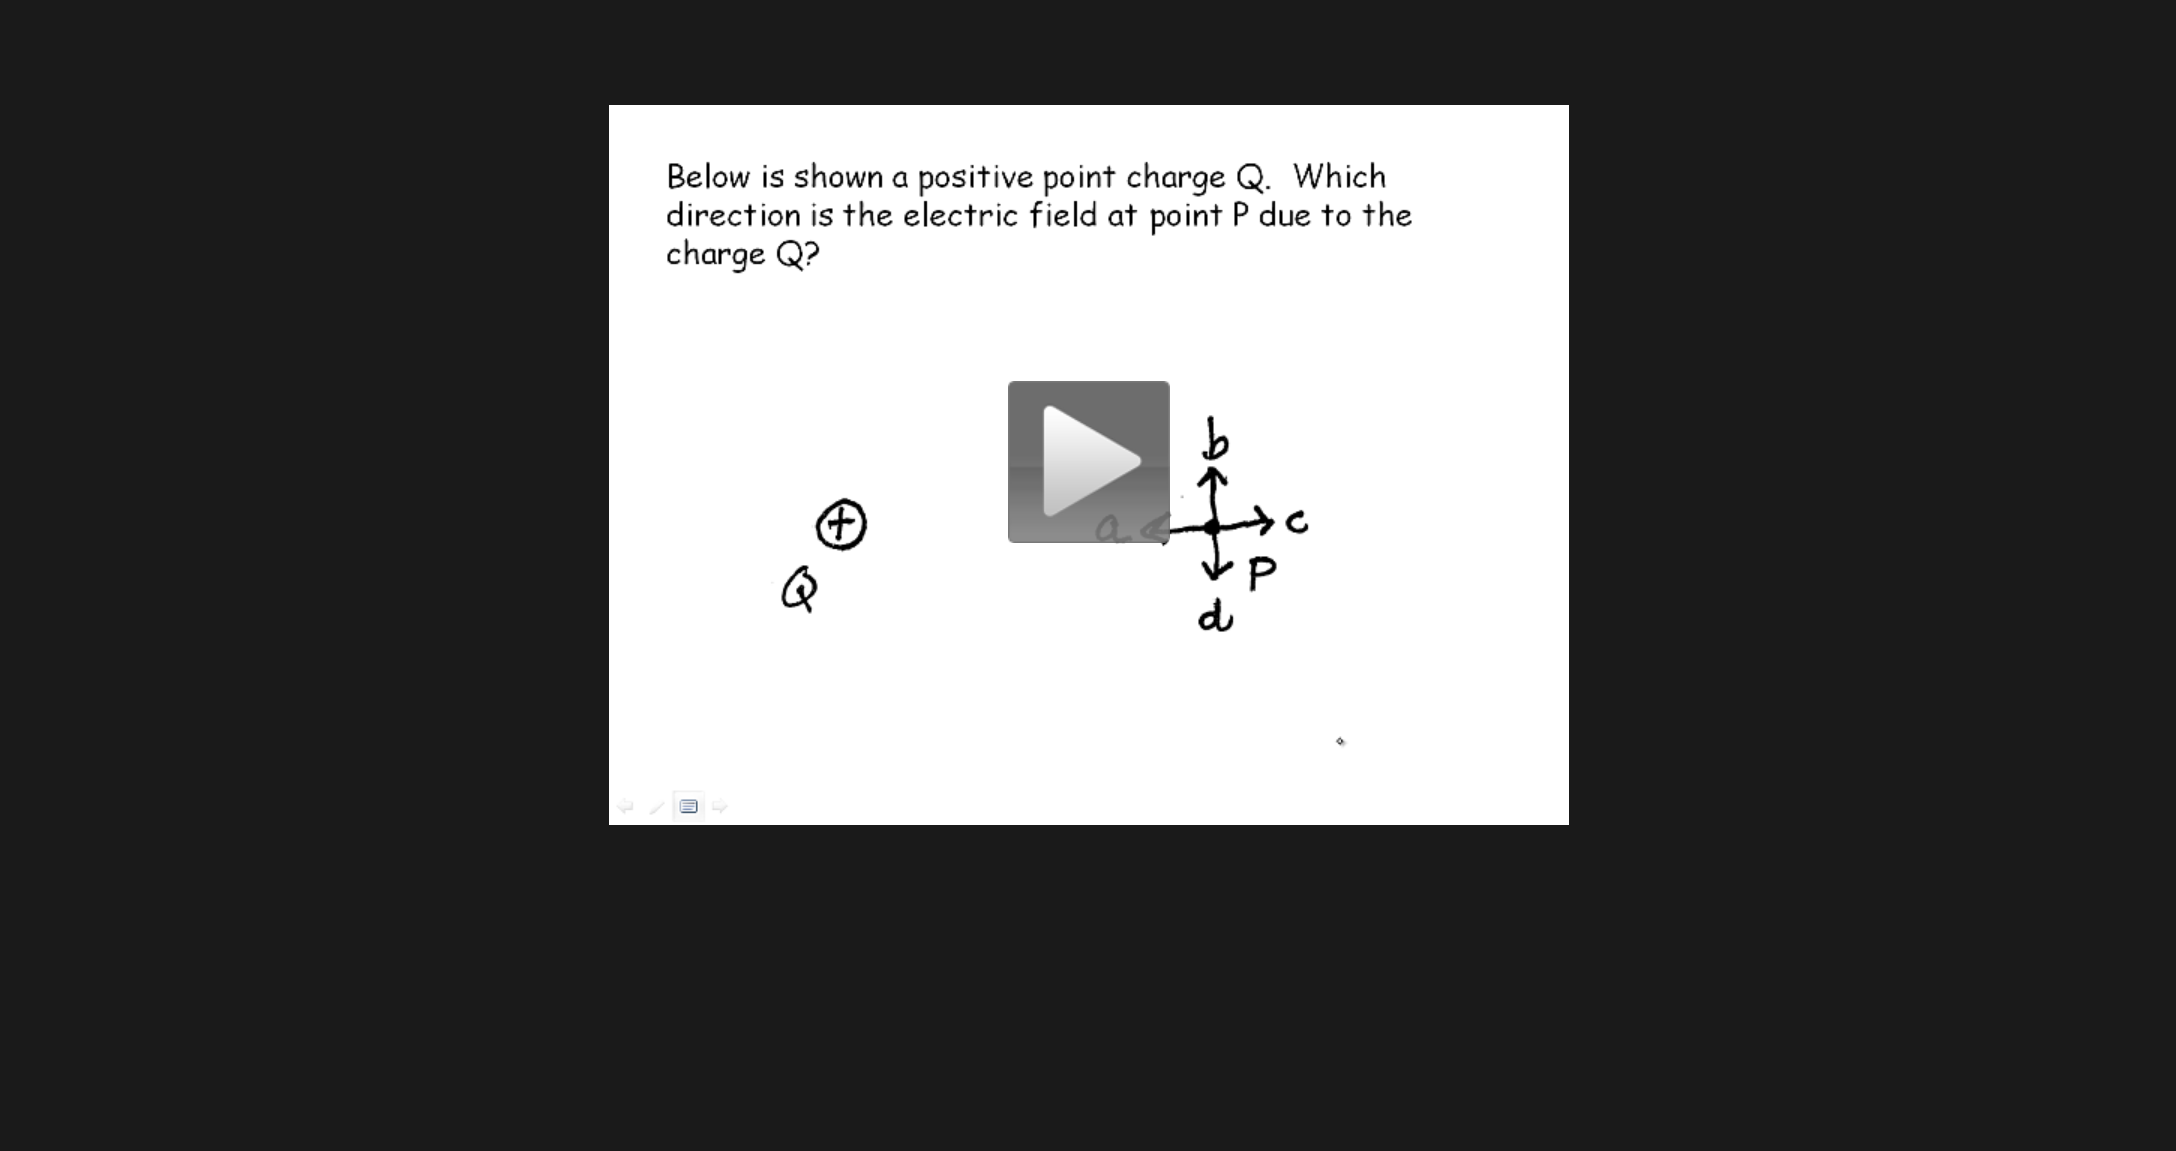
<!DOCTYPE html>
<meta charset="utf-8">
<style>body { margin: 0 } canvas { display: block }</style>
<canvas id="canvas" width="2176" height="1151"></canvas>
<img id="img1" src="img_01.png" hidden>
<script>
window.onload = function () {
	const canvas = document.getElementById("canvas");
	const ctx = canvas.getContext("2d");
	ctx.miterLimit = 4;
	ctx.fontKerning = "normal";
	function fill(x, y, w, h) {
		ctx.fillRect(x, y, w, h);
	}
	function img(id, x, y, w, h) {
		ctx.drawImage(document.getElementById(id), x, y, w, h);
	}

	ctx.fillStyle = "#1A1A1A";
	fill(0, 0, 2176, 1151);
	img("img1", 609, 105, 960, 720);
};
</script>
